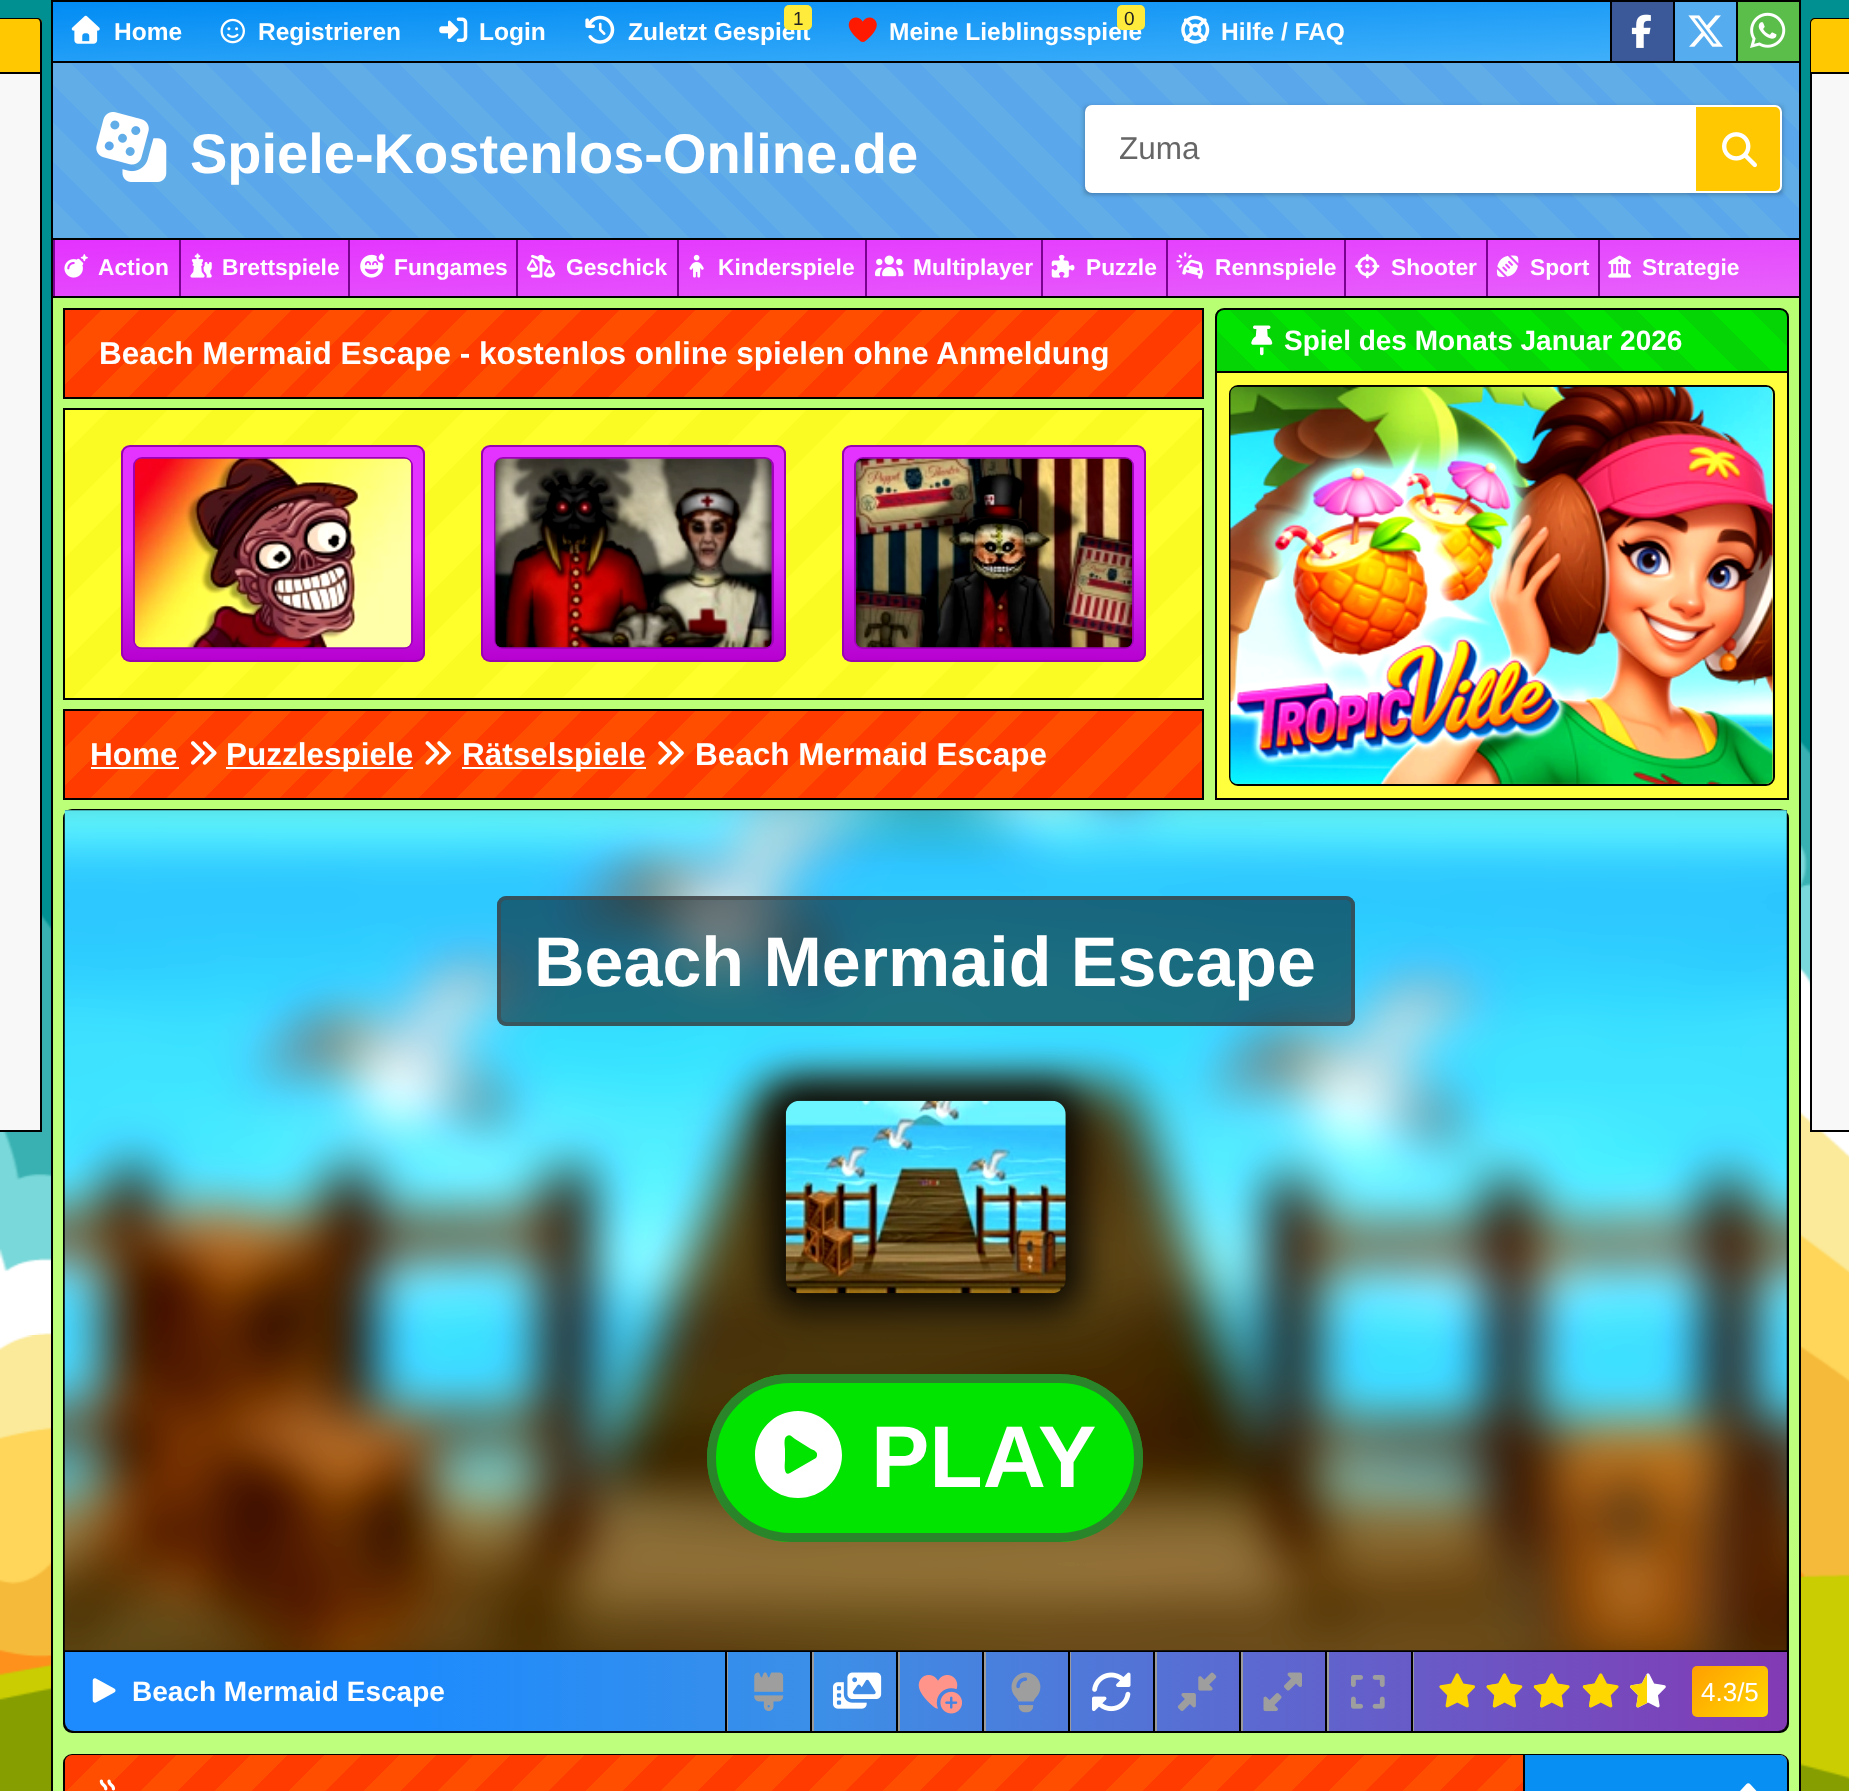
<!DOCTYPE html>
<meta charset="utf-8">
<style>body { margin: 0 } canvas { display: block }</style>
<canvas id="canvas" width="1849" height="1791"></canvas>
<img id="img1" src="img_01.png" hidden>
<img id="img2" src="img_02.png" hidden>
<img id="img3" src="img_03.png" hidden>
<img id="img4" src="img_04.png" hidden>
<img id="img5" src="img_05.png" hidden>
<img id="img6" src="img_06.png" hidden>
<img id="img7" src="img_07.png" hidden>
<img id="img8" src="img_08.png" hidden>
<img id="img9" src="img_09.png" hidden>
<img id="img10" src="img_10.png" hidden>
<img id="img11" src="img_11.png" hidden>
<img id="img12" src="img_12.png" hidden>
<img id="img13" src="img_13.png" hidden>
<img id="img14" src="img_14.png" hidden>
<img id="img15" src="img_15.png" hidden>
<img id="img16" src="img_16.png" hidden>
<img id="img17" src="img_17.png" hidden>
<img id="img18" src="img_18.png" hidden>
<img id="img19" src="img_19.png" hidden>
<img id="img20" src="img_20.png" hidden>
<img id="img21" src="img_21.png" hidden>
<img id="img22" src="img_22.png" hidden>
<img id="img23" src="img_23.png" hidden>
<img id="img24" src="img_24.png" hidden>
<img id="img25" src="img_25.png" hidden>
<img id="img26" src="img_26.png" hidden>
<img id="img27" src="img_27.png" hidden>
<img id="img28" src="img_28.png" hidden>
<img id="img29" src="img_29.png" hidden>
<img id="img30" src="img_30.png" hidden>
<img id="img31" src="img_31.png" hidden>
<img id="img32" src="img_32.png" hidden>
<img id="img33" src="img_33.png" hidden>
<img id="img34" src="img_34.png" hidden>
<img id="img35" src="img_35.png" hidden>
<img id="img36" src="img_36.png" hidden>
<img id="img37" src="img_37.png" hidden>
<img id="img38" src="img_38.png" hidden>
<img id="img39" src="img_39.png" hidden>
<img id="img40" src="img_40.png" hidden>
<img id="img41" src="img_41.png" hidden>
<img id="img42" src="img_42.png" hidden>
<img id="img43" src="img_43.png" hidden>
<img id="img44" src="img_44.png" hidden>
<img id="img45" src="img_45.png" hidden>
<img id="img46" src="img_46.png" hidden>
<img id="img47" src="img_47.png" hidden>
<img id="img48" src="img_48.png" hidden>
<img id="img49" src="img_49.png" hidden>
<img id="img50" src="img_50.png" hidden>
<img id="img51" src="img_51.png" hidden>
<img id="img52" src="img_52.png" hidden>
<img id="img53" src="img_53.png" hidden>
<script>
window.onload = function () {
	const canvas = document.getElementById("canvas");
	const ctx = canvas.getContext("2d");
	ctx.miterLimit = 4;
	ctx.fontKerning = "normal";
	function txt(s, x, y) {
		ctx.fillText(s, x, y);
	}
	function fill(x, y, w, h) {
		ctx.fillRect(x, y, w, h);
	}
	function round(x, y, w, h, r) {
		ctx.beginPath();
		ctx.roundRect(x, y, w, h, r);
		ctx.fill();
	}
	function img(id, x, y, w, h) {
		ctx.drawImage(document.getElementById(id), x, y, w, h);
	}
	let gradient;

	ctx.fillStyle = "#009091";
	fill(0, 0, 1849, 1791);
	img("img1", 0, 500, 1849, 1291);
	ctx.fillStyle = "#FFC800";
	ctx.beginPath();
	ctx.moveTo(0, 18);
	ctx.lineTo(37, 18);
	ctx.bezierCurveTo(40, 18, 42, 20, 42, 23);
	ctx.lineTo(42, 72);
	ctx.lineTo(-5, 72);
	ctx.lineTo(-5, 23);
	ctx.bezierCurveTo(-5, 20, -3, 18, 0, 18);
	ctx.closePath();
	ctx.fill();
	ctx.fillStyle = "#000000";
	ctx.beginPath();
	ctx.moveTo(-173, 18);
	ctx.lineTo(37, 18);
	ctx.bezierCurveTo(40, 18, 42, 20, 42, 23);
	ctx.lineTo(42, 72);
	ctx.lineTo(-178, 72);
	ctx.lineTo(-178, 23);
	ctx.bezierCurveTo(-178, 20, -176, 18, -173, 18);
	ctx.closePath();
	ctx.moveTo(-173, 19);
	ctx.lineTo(37, 19);
	ctx.bezierCurveTo(39, 19, 40, 21, 40, 23);
	ctx.lineTo(40, 72);
	ctx.lineTo(-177, 72);
	ctx.lineTo(-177, 23);
	ctx.bezierCurveTo(-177, 21, -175, 19, -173, 19);
	ctx.closePath();
	ctx.fill("evenodd");
	ctx.fillStyle = "#F8F8F8";
	ctx.beginPath();
	ctx.rect(-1, 73, 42, 1058);
	ctx.fill();
	ctx.strokeStyle = "#000000";
	ctx.lineWidth = 2;
	ctx.stroke();
	ctx.fillStyle = "#000000";
	fill(51, 0, 1750, 2);
	fill(1799, 0, 2, 1791);
	fill(51, 0, 2, 1791);
	gradient = ctx.createLinearGradient(924, -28, 928, 91);
	gradient.addColorStop(0, "#008BF4");
	gradient.addColorStop(1, "#43B2FA");
	ctx.fillStyle = gradient;
	fill(53, 2, 1557, 59);
	ctx.fillStyle = "#000000";
	fill(53, 61, 1746, 2);
	img("img2", 71, 15, 29, 29);
	img("img3", 220, 18, 25, 26);
	img("img4", 439, 17, 29, 25);
	img("img5", 585, 15, 30, 29);
	img("img6", 848, 17, 29, 25);
	img("img7", 1181, 15, 29, 29);
	ctx.fillStyle = "#3B5998";
	fill(1612, 2, 61, 59);
	ctx.fillStyle = "#000000";
	fill(1610, 2, 2, 61);
	img("img8", 1631, 14, 20, 34);
	ctx.fillStyle = "#55ACEE";
	fill(1675, 2, 61, 59);
	ctx.fillStyle = "#000000";
	fill(1673, 2, 2, 61);
	img("img9", 1688, 15, 35, 32);
	ctx.fillStyle = "#5CBE4A";
	fill(1738, 2, 61, 59);
	ctx.fillStyle = "#000000";
	fill(1736, 2, 2, 61);
	img("img10", 1750, 12, 36, 36);
	gradient = ctx.createLinearGradient(445, 631, 1411, -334);
	gradient.addColorStop(0, "#60ADE7");
	gradient.addColorStop(0.02, "#60ADE7");
	gradient.addColorStop(0.02, "#5AA7EC");
	gradient.addColorStop(0.04, "#5AA7EC");
	gradient.addColorStop(0.04, "#60ADE7");
	gradient.addColorStop(0.06, "#60ADE7");
	gradient.addColorStop(0.06, "#5AA7EC");
	gradient.addColorStop(0.08, "#5AA7EC");
	gradient.addColorStop(0.08, "#60ADE7");
	gradient.addColorStop(0.1, "#60ADE7");
	gradient.addColorStop(0.1, "#5AA7EC");
	gradient.addColorStop(0.12, "#5AA7EC");
	gradient.addColorStop(0.12, "#60ADE7");
	gradient.addColorStop(0.13, "#60ADE7");
	gradient.addColorStop(0.13, "#5AA7EC");
	gradient.addColorStop(0.15, "#5AA7EC");
	gradient.addColorStop(0.15, "#60ADE7");
	gradient.addColorStop(0.17, "#60ADE7");
	gradient.addColorStop(0.17, "#5AA7EC");
	gradient.addColorStop(0.19, "#5AA7EC");
	gradient.addColorStop(0.19, "#60ADE7");
	gradient.addColorStop(0.21, "#60ADE7");
	gradient.addColorStop(0.21, "#5AA7EC");
	gradient.addColorStop(0.23, "#5AA7EC");
	gradient.addColorStop(0.23, "#60ADE7");
	gradient.addColorStop(0.25, "#60ADE7");
	gradient.addColorStop(0.25, "#5AA7EC");
	gradient.addColorStop(0.27, "#5AA7EC");
	gradient.addColorStop(0.27, "#60ADE7");
	gradient.addColorStop(0.29, "#60ADE7");
	gradient.addColorStop(0.29, "#5AA7EC");
	gradient.addColorStop(0.31, "#5AA7EC");
	gradient.addColorStop(0.31, "#60ADE7");
	gradient.addColorStop(0.33, "#60ADE7");
	gradient.addColorStop(0.33, "#5AA7EC");
	gradient.addColorStop(0.35, "#5AA7EC");
	gradient.addColorStop(0.35, "#60ADE7");
	gradient.addColorStop(0.37, "#60ADE7");
	gradient.addColorStop(0.37, "#5AA7EC");
	gradient.addColorStop(0.38, "#5AA7EC");
	gradient.addColorStop(0.38, "#60ADE7");
	gradient.addColorStop(0.4, "#60ADE7");
	gradient.addColorStop(0.4, "#5AA7EC");
	gradient.addColorStop(0.42, "#5AA7EC");
	gradient.addColorStop(0.42, "#60ADE7");
	gradient.addColorStop(0.44, "#60ADE7");
	gradient.addColorStop(0.44, "#5AA7EC");
	gradient.addColorStop(0.46, "#5AA7EC");
	gradient.addColorStop(0.46, "#60ADE7");
	gradient.addColorStop(0.48, "#60ADE7");
	gradient.addColorStop(0.48, "#5AA7EC");
	gradient.addColorStop(0.5, "#5AA7EC");
	gradient.addColorStop(0.5, "#60ADE7");
	gradient.addColorStop(0.52, "#60ADE7");
	gradient.addColorStop(0.52, "#5AA7EC");
	gradient.addColorStop(0.54, "#5AA7EC");
	gradient.addColorStop(0.54, "#60ADE7");
	gradient.addColorStop(0.56, "#60ADE7");
	gradient.addColorStop(0.56, "#5AA7EC");
	gradient.addColorStop(0.58, "#5AA7EC");
	gradient.addColorStop(0.58, "#60ADE7");
	gradient.addColorStop(0.6, "#60ADE7");
	gradient.addColorStop(0.6, "#5AA7EC");
	gradient.addColorStop(0.62, "#5AA7EC");
	gradient.addColorStop(0.62, "#60ADE7");
	gradient.addColorStop(0.63, "#60ADE7");
	gradient.addColorStop(0.63, "#5AA7EC");
	gradient.addColorStop(0.65, "#5AA7EC");
	gradient.addColorStop(0.65, "#60ADE7");
	gradient.addColorStop(0.67, "#60ADE7");
	gradient.addColorStop(0.67, "#5AA7EC");
	gradient.addColorStop(0.69, "#5AA7EC");
	gradient.addColorStop(0.69, "#60ADE7");
	gradient.addColorStop(0.71, "#60ADE7");
	gradient.addColorStop(0.71, "#5AA7EC");
	gradient.addColorStop(0.73, "#5AA7EC");
	gradient.addColorStop(0.73, "#60ADE7");
	gradient.addColorStop(0.75, "#60ADE7");
	gradient.addColorStop(0.75, "#5AA7EC");
	gradient.addColorStop(0.77, "#5AA7EC");
	gradient.addColorStop(0.77, "#60ADE7");
	gradient.addColorStop(0.79, "#60ADE7");
	gradient.addColorStop(0.79, "#5AA7EC");
	gradient.addColorStop(0.81, "#5AA7EC");
	gradient.addColorStop(0.81, "#60ADE7");
	gradient.addColorStop(0.83, "#60ADE7");
	gradient.addColorStop(0.83, "#5AA7EC");
	gradient.addColorStop(0.85, "#5AA7EC");
	gradient.addColorStop(0.85, "#60ADE7");
	gradient.addColorStop(0.87, "#60ADE7");
	gradient.addColorStop(0.87, "#5AA7EC");
	gradient.addColorStop(0.88, "#5AA7EC");
	gradient.addColorStop(0.88, "#60ADE7");
	gradient.addColorStop(0.9, "#60ADE7");
	gradient.addColorStop(0.9, "#5AA7EC");
	gradient.addColorStop(0.92, "#5AA7EC");
	gradient.addColorStop(0.92, "#60ADE7");
	gradient.addColorStop(0.94, "#60ADE7");
	gradient.addColorStop(0.94, "#5AA7EC");
	gradient.addColorStop(0.96, "#5AA7EC");
	gradient.addColorStop(0.96, "#60ADE7");
	gradient.addColorStop(0.98, "#60ADE7");
	gradient.addColorStop(0.98, "#5AA7EC");
	gradient.addColorStop(1, "#5AA7EC");
	ctx.fillStyle = gradient;
	fill(53, 63, 1746, 175);
	img("img11", 96, 112, 71, 70);
	ctx.fillStyle = "rgba(0, 0, 0, 0.3)";
	ctx.filter = "blur(2.5px)";
	ctx.beginPath();
	ctx.rect(1085, 107, 697, 87);
	ctx.fill();
	ctx.filter = "none";
	ctx.fillStyle = "#FFFFFF";
	ctx.beginPath();
	ctx.roundRect(1085, 105, 609, 88, [7, 0, 0, 7]);
	ctx.fill();
	ctx.fillStyle = "#FFC800";
	ctx.beginPath();
	ctx.roundRect(1695, 106, 86, 86, [0, 6, 6, 0]);
	ctx.fill();
	ctx.strokeStyle = "#FFFFFF";
	ctx.stroke();
	img("img12", 1722, 132, 35, 36);
	gradient = ctx.createLinearGradient(924, 212, 928, 324);
	gradient.addColorStop(0, "#E433FF");
	gradient.addColorStop(1, "#E75FFB");
	ctx.fillStyle = gradient;
	fill(55, 240, 1744, 56);
	ctx.fillStyle = "#000000";
	fill(53, 238, 1746, 2);
	fill(53, 296, 1746, 2);
	ctx.fillStyle = "#790290";
	fill(53, 240, 2, 56);
	img("img13", 64, 254, 24, 24);
	fill(179, 240, 2, 56);
	img("img14", 190, 253, 22, 25);
	fill(348, 240, 2, 56);
	img("img15", 360, 253, 25, 25);
	fill(516, 240, 2, 56);
	img("img16", 526, 254, 30, 24);
	fill(677, 240, 2, 56);
	img("img17", 689, 254, 15, 24);
	fill(865, 240, 2, 56);
	img("img18", 875, 255, 29, 22);
	fill(1041, 240, 2, 56);
	img("img19", 1051, 254, 24, 24);
	fill(1166, 240, 2, 56);
	img("img20", 1176, 252, 28, 27);
	fill(1344, 240, 2, 56);
	img("img21", 1355, 254, 25, 25);
	fill(1486, 240, 2, 56);
	img("img22", 1496, 255, 23, 22);
	fill(1598, 240, 2, 56);
	img("img23", 1608, 255, 23, 23);
	gradient = ctx.createLinearGradient(926, 298, 926, 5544);
	gradient.addColorStop(0, "#B9FF74");
	gradient.addColorStop(1, "#CCFF99");
	ctx.fillStyle = gradient;
	fill(53, 298, 1746, 1493);
	gradient = ctx.createLinearGradient(327, 47, 958, 678);
	gradient.addColorStop(0, "#FF3B00");
	gradient.addColorStop(0.03, "#FF3B00");
	gradient.addColorStop(0.03, "#FF4E00");
	gradient.addColorStop(0.06, "#FF4E00");
	gradient.addColorStop(0.06, "#FF3B00");
	gradient.addColorStop(0.09, "#FF3B00");
	gradient.addColorStop(0.09, "#FF4E00");
	gradient.addColorStop(0.12, "#FF4E00");
	gradient.addColorStop(0.12, "#FF3B00");
	gradient.addColorStop(0.15, "#FF3B00");
	gradient.addColorStop(0.15, "#FF4E00");
	gradient.addColorStop(0.18, "#FF4E00");
	gradient.addColorStop(0.18, "#FF3B00");
	gradient.addColorStop(0.21, "#FF3B00");
	gradient.addColorStop(0.21, "#FF4E00");
	gradient.addColorStop(0.24, "#FF4E00");
	gradient.addColorStop(0.24, "#FF3B00");
	gradient.addColorStop(0.26, "#FF3B00");
	gradient.addColorStop(0.26, "#FF4E00");
	gradient.addColorStop(0.29, "#FF4E00");
	gradient.addColorStop(0.29, "#FF3B00");
	gradient.addColorStop(0.32, "#FF3B00");
	gradient.addColorStop(0.32, "#FF4E00");
	gradient.addColorStop(0.35, "#FF4E00");
	gradient.addColorStop(0.35, "#FF3B00");
	gradient.addColorStop(0.38, "#FF3B00");
	gradient.addColorStop(0.38, "#FF4E00");
	gradient.addColorStop(0.41, "#FF4E00");
	gradient.addColorStop(0.41, "#FF3B00");
	gradient.addColorStop(0.44, "#FF3B00");
	gradient.addColorStop(0.44, "#FF4E00");
	gradient.addColorStop(0.47, "#FF4E00");
	gradient.addColorStop(0.47, "#FF3B00");
	gradient.addColorStop(0.5, "#FF3B00");
	gradient.addColorStop(0.5, "#FF4E00");
	gradient.addColorStop(0.53, "#FF4E00");
	gradient.addColorStop(0.53, "#FF3B00");
	gradient.addColorStop(0.56, "#FF3B00");
	gradient.addColorStop(0.56, "#FF4E00");
	gradient.addColorStop(0.59, "#FF4E00");
	gradient.addColorStop(0.59, "#FF3B00");
	gradient.addColorStop(0.62, "#FF3B00");
	gradient.addColorStop(0.62, "#FF4E00");
	gradient.addColorStop(0.65, "#FF4E00");
	gradient.addColorStop(0.65, "#FF3B00");
	gradient.addColorStop(0.68, "#FF3B00");
	gradient.addColorStop(0.68, "#FF4E00");
	gradient.addColorStop(0.71, "#FF4E00");
	gradient.addColorStop(0.71, "#FF3B00");
	gradient.addColorStop(0.74, "#FF3B00");
	gradient.addColorStop(0.74, "#FF4E00");
	gradient.addColorStop(0.76, "#FF4E00");
	gradient.addColorStop(0.76, "#FF3B00");
	gradient.addColorStop(0.79, "#FF3B00");
	gradient.addColorStop(0.79, "#FF4E00");
	gradient.addColorStop(0.82, "#FF4E00");
	gradient.addColorStop(0.82, "#FF3B00");
	gradient.addColorStop(0.85, "#FF3B00");
	gradient.addColorStop(0.85, "#FF4E00");
	gradient.addColorStop(0.88, "#FF4E00");
	gradient.addColorStop(0.88, "#FF3B00");
	gradient.addColorStop(0.91, "#FF3B00");
	gradient.addColorStop(0.91, "#FF4E00");
	gradient.addColorStop(0.94, "#FF4E00");
	gradient.addColorStop(0.94, "#FF3B00");
	gradient.addColorStop(0.97, "#FF3B00");
	gradient.addColorStop(0.97, "#FF4E00");
	gradient.addColorStop(1, "#FF4E00");
	ctx.fillStyle = gradient;
	fill(65, 310, 1137, 87);
	ctx.strokeStyle = "#000000";
	ctx.strokeRect(64, 309, 1139, 89);
	gradient = ctx.createLinearGradient(277, 197, 1019, 940);
	gradient.addColorStop(0, "#FFFF2B");
	gradient.addColorStop(0.03, "#FFFF2B");
	gradient.addColorStop(0.03, "#FBFB24");
	gradient.addColorStop(0.07, "#FBFB24");
	gradient.addColorStop(0.07, "#FFFF2B");
	gradient.addColorStop(0.1, "#FFFF2B");
	gradient.addColorStop(0.1, "#FBFB24");
	gradient.addColorStop(0.13, "#FBFB24");
	gradient.addColorStop(0.13, "#FFFF2B");
	gradient.addColorStop(0.17, "#FFFF2B");
	gradient.addColorStop(0.17, "#FBFB24");
	gradient.addColorStop(0.2, "#FBFB24");
	gradient.addColorStop(0.2, "#FFFF2B");
	gradient.addColorStop(0.23, "#FFFF2B");
	gradient.addColorStop(0.23, "#FBFB24");
	gradient.addColorStop(0.27, "#FBFB24");
	gradient.addColorStop(0.27, "#FFFF2B");
	gradient.addColorStop(0.3, "#FFFF2B");
	gradient.addColorStop(0.3, "#FBFB24");
	gradient.addColorStop(0.33, "#FBFB24");
	gradient.addColorStop(0.33, "#FFFF2B");
	gradient.addColorStop(0.37, "#FFFF2B");
	gradient.addColorStop(0.37, "#FBFB24");
	gradient.addColorStop(0.4, "#FBFB24");
	gradient.addColorStop(0.4, "#FFFF2B");
	gradient.addColorStop(0.43, "#FFFF2B");
	gradient.addColorStop(0.43, "#FBFB24");
	gradient.addColorStop(0.47, "#FBFB24");
	gradient.addColorStop(0.47, "#FFFF2B");
	gradient.addColorStop(0.5, "#FFFF2B");
	gradient.addColorStop(0.5, "#FBFB24");
	gradient.addColorStop(0.53, "#FBFB24");
	gradient.addColorStop(0.53, "#FFFF2B");
	gradient.addColorStop(0.57, "#FFFF2B");
	gradient.addColorStop(0.57, "#FBFB24");
	gradient.addColorStop(0.6, "#FBFB24");
	gradient.addColorStop(0.6, "#FFFF2B");
	gradient.addColorStop(0.63, "#FFFF2B");
	gradient.addColorStop(0.63, "#FBFB24");
	gradient.addColorStop(0.67, "#FBFB24");
	gradient.addColorStop(0.67, "#FFFF2B");
	gradient.addColorStop(0.7, "#FFFF2B");
	gradient.addColorStop(0.7, "#FBFB24");
	gradient.addColorStop(0.73, "#FBFB24");
	gradient.addColorStop(0.73, "#FFFF2B");
	gradient.addColorStop(0.77, "#FFFF2B");
	gradient.addColorStop(0.77, "#FBFB24");
	gradient.addColorStop(0.8, "#FBFB24");
	gradient.addColorStop(0.8, "#FFFF2B");
	gradient.addColorStop(0.83, "#FFFF2B");
	gradient.addColorStop(0.83, "#FBFB24");
	gradient.addColorStop(0.87, "#FBFB24");
	gradient.addColorStop(0.87, "#FFFF2B");
	gradient.addColorStop(0.9, "#FFFF2B");
	gradient.addColorStop(0.9, "#FBFB24");
	gradient.addColorStop(0.93, "#FBFB24");
	gradient.addColorStop(0.93, "#FFFF2B");
	gradient.addColorStop(0.97, "#FFFF2B");
	gradient.addColorStop(0.97, "#FBFB24");
	gradient.addColorStop(1, "#FBFB24");
	ctx.fillStyle = gradient;
	fill(65, 410, 1137, 288);
	ctx.strokeRect(64, 409, 1139, 290);
	ctx.save();
	ctx.beginPath();
	ctx.roundRect(121, 445, 304, 217, 9);
	ctx.clip();
	gradient = ctx.createLinearGradient(273, 446, 273, 660);
	gradient.addColorStop(0.48, "#E433FF");
	gradient.addColorStop(1, "#B601D1");
	ctx.fillStyle = gradient;
	fill(121, 446, 304, 214);
	ctx.restore();
	ctx.beginPath();
	ctx.roundRect(122, 446, 302, 215, 8);
	ctx.strokeStyle = "#9903AF";
	ctx.stroke();
	ctx.beginPath();
	ctx.roundRect(134, 458, 278, 190, 8);
	ctx.strokeStyle = "#9E00B9";
	ctx.stroke();
	img("img24", 134, 458, 278, 190);
	ctx.save();
	ctx.beginPath();
	ctx.roundRect(481, 445, 305, 217, 9);
	ctx.clip();
	gradient = ctx.createLinearGradient(634, 446, 634, 660);
	gradient.addColorStop(0.48, "#E433FF");
	gradient.addColorStop(1, "#B601D1");
	ctx.fillStyle = gradient;
	fill(481, 446, 305, 214);
	ctx.restore();
	ctx.beginPath();
	ctx.roundRect(482, 446, 303, 215, 8);
	ctx.strokeStyle = "#9903AF";
	ctx.stroke();
	ctx.fillStyle = "#A215BA";
	ctx.beginPath();
	ctx.roundRect(495, 458, 278, 190, 8);
	ctx.fill();
	ctx.strokeStyle = "#9E00B9";
	ctx.stroke();
	img("img25", 495, 458, 277, 190);
	ctx.save();
	ctx.beginPath();
	ctx.roundRect(842, 445, 304, 217, 9);
	ctx.clip();
	gradient = ctx.createLinearGradient(994, 446, 994, 660);
	gradient.addColorStop(0.48, "#E433FF");
	gradient.addColorStop(1, "#B601D1");
	ctx.fillStyle = gradient;
	fill(842, 446, 304, 214);
	ctx.restore();
	ctx.beginPath();
	ctx.roundRect(843, 446, 302, 215, 8);
	ctx.strokeStyle = "#9903AF";
	ctx.stroke();
	ctx.beginPath();
	ctx.roundRect(855, 458, 278, 190, 8);
	ctx.strokeStyle = "#9E00B9";
	ctx.stroke();
	img("img26", 855, 458, 278, 190);
	gradient = ctx.createLinearGradient(327, 448, 958, 1079);
	gradient.addColorStop(0, "#FF3B00");
	gradient.addColorStop(0.03, "#FF3B00");
	gradient.addColorStop(0.03, "#FF4E00");
	gradient.addColorStop(0.06, "#FF4E00");
	gradient.addColorStop(0.06, "#FF3B00");
	gradient.addColorStop(0.09, "#FF3B00");
	gradient.addColorStop(0.09, "#FF4E00");
	gradient.addColorStop(0.12, "#FF4E00");
	gradient.addColorStop(0.12, "#FF3B00");
	gradient.addColorStop(0.15, "#FF3B00");
	gradient.addColorStop(0.15, "#FF4E00");
	gradient.addColorStop(0.18, "#FF4E00");
	gradient.addColorStop(0.18, "#FF3B00");
	gradient.addColorStop(0.21, "#FF3B00");
	gradient.addColorStop(0.21, "#FF4E00");
	gradient.addColorStop(0.24, "#FF4E00");
	gradient.addColorStop(0.24, "#FF3B00");
	gradient.addColorStop(0.26, "#FF3B00");
	gradient.addColorStop(0.26, "#FF4E00");
	gradient.addColorStop(0.29, "#FF4E00");
	gradient.addColorStop(0.29, "#FF3B00");
	gradient.addColorStop(0.32, "#FF3B00");
	gradient.addColorStop(0.32, "#FF4E00");
	gradient.addColorStop(0.35, "#FF4E00");
	gradient.addColorStop(0.35, "#FF3B00");
	gradient.addColorStop(0.38, "#FF3B00");
	gradient.addColorStop(0.38, "#FF4E00");
	gradient.addColorStop(0.41, "#FF4E00");
	gradient.addColorStop(0.41, "#FF3B00");
	gradient.addColorStop(0.44, "#FF3B00");
	gradient.addColorStop(0.44, "#FF4E00");
	gradient.addColorStop(0.47, "#FF4E00");
	gradient.addColorStop(0.47, "#FF3B00");
	gradient.addColorStop(0.5, "#FF3B00");
	gradient.addColorStop(0.5, "#FF4E00");
	gradient.addColorStop(0.53, "#FF4E00");
	gradient.addColorStop(0.53, "#FF3B00");
	gradient.addColorStop(0.56, "#FF3B00");
	gradient.addColorStop(0.56, "#FF4E00");
	gradient.addColorStop(0.59, "#FF4E00");
	gradient.addColorStop(0.59, "#FF3B00");
	gradient.addColorStop(0.62, "#FF3B00");
	gradient.addColorStop(0.62, "#FF4E00");
	gradient.addColorStop(0.65, "#FF4E00");
	gradient.addColorStop(0.65, "#FF3B00");
	gradient.addColorStop(0.68, "#FF3B00");
	gradient.addColorStop(0.68, "#FF4E00");
	gradient.addColorStop(0.71, "#FF4E00");
	gradient.addColorStop(0.71, "#FF3B00");
	gradient.addColorStop(0.74, "#FF3B00");
	gradient.addColorStop(0.74, "#FF4E00");
	gradient.addColorStop(0.76, "#FF4E00");
	gradient.addColorStop(0.76, "#FF3B00");
	gradient.addColorStop(0.79, "#FF3B00");
	gradient.addColorStop(0.79, "#FF4E00");
	gradient.addColorStop(0.82, "#FF4E00");
	gradient.addColorStop(0.82, "#FF3B00");
	gradient.addColorStop(0.85, "#FF3B00");
	gradient.addColorStop(0.85, "#FF4E00");
	gradient.addColorStop(0.88, "#FF4E00");
	gradient.addColorStop(0.88, "#FF3B00");
	gradient.addColorStop(0.91, "#FF3B00");
	gradient.addColorStop(0.91, "#FF4E00");
	gradient.addColorStop(0.94, "#FF4E00");
	gradient.addColorStop(0.94, "#FF3B00");
	gradient.addColorStop(0.97, "#FF3B00");
	gradient.addColorStop(0.97, "#FF4E00");
	gradient.addColorStop(1, "#FF4E00");
	ctx.fillStyle = gradient;
	fill(65, 711, 1137, 87);
	ctx.strokeStyle = "#000000";
	ctx.strokeRect(64, 710, 1139, 89);
	ctx.fillStyle = "#FFFFFF";
	fill(91, 767, 88, 2);
	img("img27", 191, 741, 26, 24);
	fill(226, 767, 187, 2);
	img("img28", 425, 741, 27, 24);
	fill(462, 767, 184, 2);
	img("img29", 658, 741, 26, 24);
	ctx.save();
	ctx.beginPath();
	ctx.roundRect(1215, 308, 574, 65, [9, 9, 0, 0]);
	ctx.clip();
	gradient = ctx.createLinearGradient(1344, 498, 1678, 164);
	gradient.addColorStop(0, "#05D505");
	gradient.addColorStop(0.06, "#05D505");
	gradient.addColorStop(0.06, "#00E400");
	gradient.addColorStop(0.11, "#00E400");
	gradient.addColorStop(0.11, "#05D505");
	gradient.addColorStop(0.17, "#05D505");
	gradient.addColorStop(0.17, "#00E400");
	gradient.addColorStop(0.22, "#00E400");
	gradient.addColorStop(0.22, "#05D505");
	gradient.addColorStop(0.28, "#05D505");
	gradient.addColorStop(0.28, "#00E400");
	gradient.addColorStop(0.33, "#00E400");
	gradient.addColorStop(0.33, "#05D505");
	gradient.addColorStop(0.39, "#05D505");
	gradient.addColorStop(0.39, "#00E400");
	gradient.addColorStop(0.44, "#00E400");
	gradient.addColorStop(0.44, "#05D505");
	gradient.addColorStop(0.5, "#05D505");
	gradient.addColorStop(0.5, "#00E400");
	gradient.addColorStop(0.56, "#00E400");
	gradient.addColorStop(0.56, "#05D505");
	gradient.addColorStop(0.61, "#05D505");
	gradient.addColorStop(0.61, "#00E400");
	gradient.addColorStop(0.67, "#00E400");
	gradient.addColorStop(0.67, "#05D505");
	gradient.addColorStop(0.72, "#05D505");
	gradient.addColorStop(0.72, "#00E400");
	gradient.addColorStop(0.78, "#00E400");
	gradient.addColorStop(0.78, "#05D505");
	gradient.addColorStop(0.83, "#05D505");
	gradient.addColorStop(0.83, "#00E400");
	gradient.addColorStop(0.89, "#00E400");
	gradient.addColorStop(0.89, "#05D505");
	gradient.addColorStop(0.94, "#05D505");
	gradient.addColorStop(0.94, "#00E400");
	gradient.addColorStop(1, "#00E400");
	ctx.fillStyle = gradient;
	fill(1216, 310, 571, 61);
	ctx.restore();
	ctx.beginPath();
	ctx.roundRect(1216, 309, 572, 63, [8, 8, 0, 0]);
	ctx.stroke();
	img("img30", 1251, 325, 22, 31);
	ctx.fillStyle = "#FFFF3E";
	fill(1217, 373, 570, 425);
	ctx.fillStyle = "#000000";
	fill(1787, 373, 2, 427);
	fill(1215, 798, 574, 2);
	fill(1215, 373, 2, 427);
	ctx.beginPath();
	ctx.roundRect(1230, 386, 544, 399, 8);
	ctx.stroke();
	img("img31", 1230, 386, 543, 398);
	ctx.fillStyle = "#111111";
	ctx.beginPath();
	ctx.roundRect(64, 810, 1724, 922, 8);
	ctx.fill();
	ctx.stroke();
	gradient = ctx.createLinearGradient(1787, 1691, 65, 1691);
	gradient.addColorStop(0, "#833AB4");
	gradient.addColorStop(0.56, "#3C8FE7");
	gradient.addColorStop(0.8, "#1D8BFD");
	ctx.fillStyle = gradient;
	ctx.beginPath();
	ctx.roundRect(65, 1650, 1722, 81, [0, 0, 9, 9]);
	ctx.fill();
	ctx.fillStyle = "#000000";
	fill(65, 810, 1722, 842);
	img("img32", 64, 810, 1723, 841);
	ctx.fillStyle = "rgba(0, 0, 0, 0.5)";
	round(497, 896, 858, 130, 9);
	ctx.beginPath();
	ctx.roundRect(499, 898, 854, 126, 7);
	ctx.strokeStyle = "rgba(70, 70, 70, 0.6)";
	ctx.lineWidth = 4;
	ctx.stroke();
	ctx.fillStyle = "rgba(0, 0, 0, 0.85)";
	ctx.filter = "blur(17.5px)";
	ctx.beginPath();
	ctx.roundRect(768, 1083, 315, 228, 32);
	ctx.fill();
	ctx.filter = "none";
	img("img33", 785, 1100, 281, 194);
	ctx.fillStyle = "#00E400";
	round(707, 1374, 436, 168, 84);
	ctx.beginPath();
	ctx.roundRect(711.5, 1378.5, 427, 159, 79.5);
	ctx.lineWidth = 9;
	ctx.stroke();
	ctx.fillStyle = "#FFFFFF";
	ctx.beginPath();
	ctx.moveTo(755, 1455);
	ctx.bezierCurveTo(755, 1431, 774, 1411, 798, 1411);
	ctx.bezierCurveTo(822, 1411, 842, 1431, 842, 1455);
	ctx.bezierCurveTo(842, 1479, 822, 1498, 798, 1498);
	ctx.bezierCurveTo(774, 1498, 755, 1479, 755, 1455);
	ctx.closePath();
	ctx.moveTo(787, 1436);
	ctx.bezierCurveTo(783, 1438, 785, 1447, 785, 1450);
	ctx.lineTo(785, 1460);
	ctx.bezierCurveTo(785, 1462, 783, 1477, 790, 1473);
	ctx.lineTo(816, 1458);
	ctx.lineTo(817, 1456);
	ctx.bezierCurveTo(818, 1452, 814, 1450, 811, 1449);
	ctx.lineTo(795, 1439);
	ctx.bezierCurveTo(792, 1437, 790, 1434, 787, 1436);
	ctx.closePath();
	ctx.fill();
	img("img34", 92, 1678, 24, 25);
	ctx.fillStyle = "#9B9B9B";
	fill(727, 1652, 1, 79);
	ctx.fillStyle = "#000000";
	fill(725, 1652, 2, 79);
	img("img35", 754, 1672, 30, 39);
	ctx.fillStyle = "#9B9B9B";
	fill(812, 1652, 2, 79);
	ctx.fillStyle = "#000000";
	fill(810, 1652, 2, 79);
	img("img36", 833, 1672, 49, 37);
	ctx.fillStyle = "#9B9B9B";
	fill(898, 1652, 2, 79);
	ctx.fillStyle = "#000000";
	fill(896, 1652, 2, 79);
	img("img37", 918, 1675, 45, 39);
	ctx.fillStyle = "#9B9B9B";
	fill(984, 1652, 2, 79);
	ctx.fillStyle = "#000000";
	fill(982, 1652, 2, 79);
	img("img38", 1011, 1672, 30, 41);
	ctx.fillStyle = "#9B9B9B";
	fill(1070, 1652, 1, 79);
	ctx.fillStyle = "#000000";
	fill(1068, 1652, 2, 79);
	img("img39", 1092, 1672, 39, 40);
	ctx.fillStyle = "#9B9B9B";
	fill(1155, 1652, 2, 79);
	ctx.fillStyle = "#000000";
	fill(1153, 1652, 2, 79);
	img("img40", 1177, 1672, 40, 39);
	ctx.fillStyle = "#9B9B9B";
	fill(1241, 1652, 2, 79);
	ctx.fillStyle = "#000000";
	fill(1239, 1652, 2, 79);
	img("img41", 1263, 1672, 39, 40);
	ctx.fillStyle = "#9B9B9B";
	fill(1327, 1652, 2, 79);
	ctx.fillStyle = "#000000";
	fill(1325, 1652, 2, 79);
	img("img42", 1351, 1675, 34, 34);
	ctx.fillStyle = "#9B9B9B";
	fill(1413, 1652, 1, 79);
	ctx.fillStyle = "#000000";
	fill(1411, 1652, 2, 79);
	img("img43", 1439, 1673, 36, 35);
	img("img44", 1486, 1673, 37, 35);
	img("img45", 1533, 1673, 37, 35);
	img("img46", 1582, 1673, 37, 35);
	img("img47", 1630, 1673, 36, 35);
	img("img48", 1486, 1674, 17, 34);
	img("img49", 1533, 1674, 18, 34);
	img("img50", 1582, 1674, 18, 34);
	img("img51", 1630, 1674, 17, 34);
	gradient = ctx.createLinearGradient(1698, 1660, 1761, 1723);
	gradient.addColorStop(0, "#FF9F00");
	gradient.addColorStop(1, "#FFD700");
	ctx.fillStyle = gradient;
	round(1692, 1666, 76, 51, 5);
	ctx.beginPath();
	ctx.roundRect(64, 1755, 1724, 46, 8);
	ctx.strokeStyle = "#000000";
	ctx.lineWidth = 2;
	ctx.stroke();
	gradient = ctx.createLinearGradient(473, 1347, 1401, 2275);
	gradient.addColorStop(0, "#FF3B00");
	gradient.addColorStop(0.02, "#FF3B00");
	gradient.addColorStop(0.02, "#FF4E00");
	gradient.addColorStop(0.04, "#FF4E00");
	gradient.addColorStop(0.04, "#FF3B00");
	gradient.addColorStop(0.06, "#FF3B00");
	gradient.addColorStop(0.06, "#FF4E00");
	gradient.addColorStop(0.08, "#FF4E00");
	gradient.addColorStop(0.08, "#FF3B00");
	gradient.addColorStop(0.1, "#FF3B00");
	gradient.addColorStop(0.1, "#FF4E00");
	gradient.addColorStop(0.12, "#FF4E00");
	gradient.addColorStop(0.12, "#FF3B00");
	gradient.addColorStop(0.14, "#FF3B00");
	gradient.addColorStop(0.14, "#FF4E00");
	gradient.addColorStop(0.16, "#FF4E00");
	gradient.addColorStop(0.16, "#FF3B00");
	gradient.addColorStop(0.18, "#FF3B00");
	gradient.addColorStop(0.18, "#FF4E00");
	gradient.addColorStop(0.2, "#FF4E00");
	gradient.addColorStop(0.2, "#FF3B00");
	gradient.addColorStop(0.22, "#FF3B00");
	gradient.addColorStop(0.22, "#FF4E00");
	gradient.addColorStop(0.24, "#FF4E00");
	gradient.addColorStop(0.24, "#FF3B00");
	gradient.addColorStop(0.26, "#FF3B00");
	gradient.addColorStop(0.26, "#FF4E00");
	gradient.addColorStop(0.28, "#FF4E00");
	gradient.addColorStop(0.28, "#FF3B00");
	gradient.addColorStop(0.3, "#FF3B00");
	gradient.addColorStop(0.3, "#FF4E00");
	gradient.addColorStop(0.32, "#FF4E00");
	gradient.addColorStop(0.32, "#FF3B00");
	gradient.addColorStop(0.34, "#FF3B00");
	gradient.addColorStop(0.34, "#FF4E00");
	gradient.addColorStop(0.36, "#FF4E00");
	gradient.addColorStop(0.36, "#FF3B00");
	gradient.addColorStop(0.38, "#FF3B00");
	gradient.addColorStop(0.38, "#FF4E00");
	gradient.addColorStop(0.4, "#FF4E00");
	gradient.addColorStop(0.4, "#FF3B00");
	gradient.addColorStop(0.42, "#FF3B00");
	gradient.addColorStop(0.42, "#FF4E00");
	gradient.addColorStop(0.44, "#FF4E00");
	gradient.addColorStop(0.44, "#FF3B00");
	gradient.addColorStop(0.46, "#FF3B00");
	gradient.addColorStop(0.46, "#FF4E00");
	gradient.addColorStop(0.48, "#FF4E00");
	gradient.addColorStop(0.48, "#FF3B00");
	gradient.addColorStop(0.5, "#FF3B00");
	gradient.addColorStop(0.5, "#FF4E00");
	gradient.addColorStop(0.52, "#FF4E00");
	gradient.addColorStop(0.52, "#FF3B00");
	gradient.addColorStop(0.54, "#FF3B00");
	gradient.addColorStop(0.54, "#FF4E00");
	gradient.addColorStop(0.56, "#FF4E00");
	gradient.addColorStop(0.56, "#FF3B00");
	gradient.addColorStop(0.58, "#FF3B00");
	gradient.addColorStop(0.58, "#FF4E00");
	gradient.addColorStop(0.6, "#FF4E00");
	gradient.addColorStop(0.6, "#FF3B00");
	gradient.addColorStop(0.62, "#FF3B00");
	gradient.addColorStop(0.62, "#FF4E00");
	gradient.addColorStop(0.64, "#FF4E00");
	gradient.addColorStop(0.64, "#FF3B00");
	gradient.addColorStop(0.66, "#FF3B00");
	gradient.addColorStop(0.66, "#FF4E00");
	gradient.addColorStop(0.68, "#FF4E00");
	gradient.addColorStop(0.68, "#FF3B00");
	gradient.addColorStop(0.7, "#FF3B00");
	gradient.addColorStop(0.7, "#FF4E00");
	gradient.addColorStop(0.72, "#FF4E00");
	gradient.addColorStop(0.72, "#FF3B00");
	gradient.addColorStop(0.74, "#FF3B00");
	gradient.addColorStop(0.74, "#FF4E00");
	gradient.addColorStop(0.76, "#FF4E00");
	gradient.addColorStop(0.76, "#FF3B00");
	gradient.addColorStop(0.78, "#FF3B00");
	gradient.addColorStop(0.78, "#FF4E00");
	gradient.addColorStop(0.8, "#FF4E00");
	gradient.addColorStop(0.8, "#FF3B00");
	gradient.addColorStop(0.82, "#FF3B00");
	gradient.addColorStop(0.82, "#FF4E00");
	gradient.addColorStop(0.84, "#FF4E00");
	gradient.addColorStop(0.84, "#FF3B00");
	gradient.addColorStop(0.86, "#FF3B00");
	gradient.addColorStop(0.86, "#FF4E00");
	gradient.addColorStop(0.88, "#FF4E00");
	gradient.addColorStop(0.88, "#FF3B00");
	gradient.addColorStop(0.9, "#FF3B00");
	gradient.addColorStop(0.9, "#FF4E00");
	gradient.addColorStop(0.92, "#FF4E00");
	gradient.addColorStop(0.92, "#FF3B00");
	gradient.addColorStop(0.94, "#FF3B00");
	gradient.addColorStop(0.94, "#FF4E00");
	gradient.addColorStop(0.96, "#FF4E00");
	gradient.addColorStop(0.96, "#FF3B00");
	gradient.addColorStop(0.98, "#FF3B00");
	gradient.addColorStop(0.98, "#FF4E00");
	gradient.addColorStop(1, "#FF4E00");
	ctx.fillStyle = gradient;
	ctx.beginPath();
	ctx.moveTo(72, 1755);
	ctx.lineTo(1780, 1755);
	ctx.bezierCurveTo(1784, 1755, 1787, 1758, 1787, 1762);
	ctx.lineTo(1787, 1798);
	ctx.lineTo(65, 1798);
	ctx.lineTo(65, 1762);
	ctx.bezierCurveTo(65, 1758, 68, 1755, 72, 1755);
	ctx.closePath();
	ctx.fill();
	img("img52", 99, 1779, 16, 12);
	ctx.fillStyle = "#078FF4";
	ctx.beginPath();
	ctx.moveTo(1523, 1755);
	ctx.lineTo(1780, 1755);
	ctx.bezierCurveTo(1784, 1755, 1787, 1758, 1787, 1762);
	ctx.lineTo(1787, 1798);
	ctx.lineTo(1523, 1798);
	ctx.closePath();
	ctx.fill();
	ctx.fillStyle = "#000000";
	fill(1523, 1755, 2, 36);
	img("img53", 1740, 1783, 17, 8);
	ctx.fillStyle = "#FFC800";
	ctx.beginPath();
	ctx.moveTo(1815, 18);
	ctx.lineTo(1849, 18);
	ctx.bezierCurveTo(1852, 18, 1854, 20, 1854, 23);
	ctx.lineTo(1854, 72);
	ctx.lineTo(1810, 72);
	ctx.lineTo(1810, 23);
	ctx.bezierCurveTo(1810, 20, 1812, 18, 1815, 18);
	ctx.closePath();
	ctx.fill();
	ctx.fillStyle = "#000000";
	ctx.beginPath();
	ctx.moveTo(1815, 18);
	ctx.lineTo(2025, 18);
	ctx.bezierCurveTo(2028, 18, 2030, 20, 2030, 23);
	ctx.lineTo(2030, 72);
	ctx.lineTo(1810, 72);
	ctx.lineTo(1810, 23);
	ctx.bezierCurveTo(1810, 20, 1812, 18, 1815, 18);
	ctx.closePath();
	ctx.moveTo(1815, 19);
	ctx.lineTo(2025, 19);
	ctx.bezierCurveTo(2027, 19, 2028, 21, 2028, 23);
	ctx.lineTo(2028, 72);
	ctx.lineTo(1811, 72);
	ctx.lineTo(1811, 23);
	ctx.bezierCurveTo(1811, 21, 1813, 19, 1815, 19);
	ctx.closePath();
	ctx.fill("evenodd");
	ctx.fillStyle = "#F8F8F8";
	ctx.beginPath();
	ctx.rect(1811, 73, 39, 1058);
	ctx.fill();
	ctx.stroke();
	ctx.font = "bold 24.5px Liberation Sans";
	ctx.fillStyle = "#FFFFFF";
	txt("Home", 114, 40);
	txt("Registrieren", 258, 40);
	txt("Login", 479, 40);
	txt("Zuletzt Gespielt", 628, 40);
	ctx.fillStyle = "#FFEB3B";
	round(784, 5, 28, 25, 5);
	ctx.font = "19px Liberation Sans";
	ctx.fillStyle = "#222222";
	txt("1", 793, 25);
	ctx.font = "bold 24.5px Liberation Sans";
	ctx.fillStyle = "#FFFFFF";
	txt("Meine Lieblingsspiele", 889, 40);
	ctx.fillStyle = "#FFEB3B";
	round(1117, 5, 28, 25, 5);
	ctx.font = "19px Liberation Sans";
	ctx.fillStyle = "#222222";
	txt("0", 1124, 25);
	ctx.font = "bold 24.5px Liberation Sans";
	ctx.fillStyle = "#FFFFFF";
	txt("Hilfe / FAQ", 1221, 40);
	ctx.font = "bold 56px Liberation Sans";
	txt("Spiele-Kostenlos-Online.de", 190, 173);
	ctx.font = "31.5px Liberation Sans";
	ctx.fillStyle = "#666666";
	txt("Zuma", 1119, 159);
	ctx.font = "bold 22.75px Liberation Sans";
	ctx.fillStyle = "#FFFFFF";
	txt("Action", 98, 275);
	txt("Brettspiele", 222, 275);
	txt("Fungames", 394, 275);
	txt("Geschick", 566, 275);
	txt("Kinderspiele", 718, 275);
	txt("Multiplayer", 913, 275);
	txt("Puzzle", 1086, 275);
	txt("Rennspiele", 1215, 275);
	txt("Shooter", 1391, 275);
	txt("Sport", 1530, 275);
	txt("Strategie", 1642, 275);
	ctx.font = "bold 31.5px Liberation Sans";
	txt("Beach Mermaid Escape - kostenlos online spielen ohne Anmeldung", 99, 364);
	txt("Home", 90, 765);
	txt("Puzzlespiele", 226, 765);
	txt("Rätselspiele", 462, 765);
	txt("Beach Mermaid Escape", 695, 765);
	ctx.font = "bold 28px Liberation Sans";
	txt("Spiel des Monats Januar 2026", 1284, 350);
	ctx.font = "bold 70px Liberation Sans";
	txt("Beach Mermaid Escape", 534, 986);
	ctx.font = "bold 87.5px Liberation Sans";
	txt("PLAY", 871, 1487);
	ctx.font = "bold 28px Liberation Sans";
	txt("Beach Mermaid Escape", 132, 1701);
	ctx.font = "26px Liberation Sans";
	txt("4.3/5", 1701, 1701);
};
</script>
